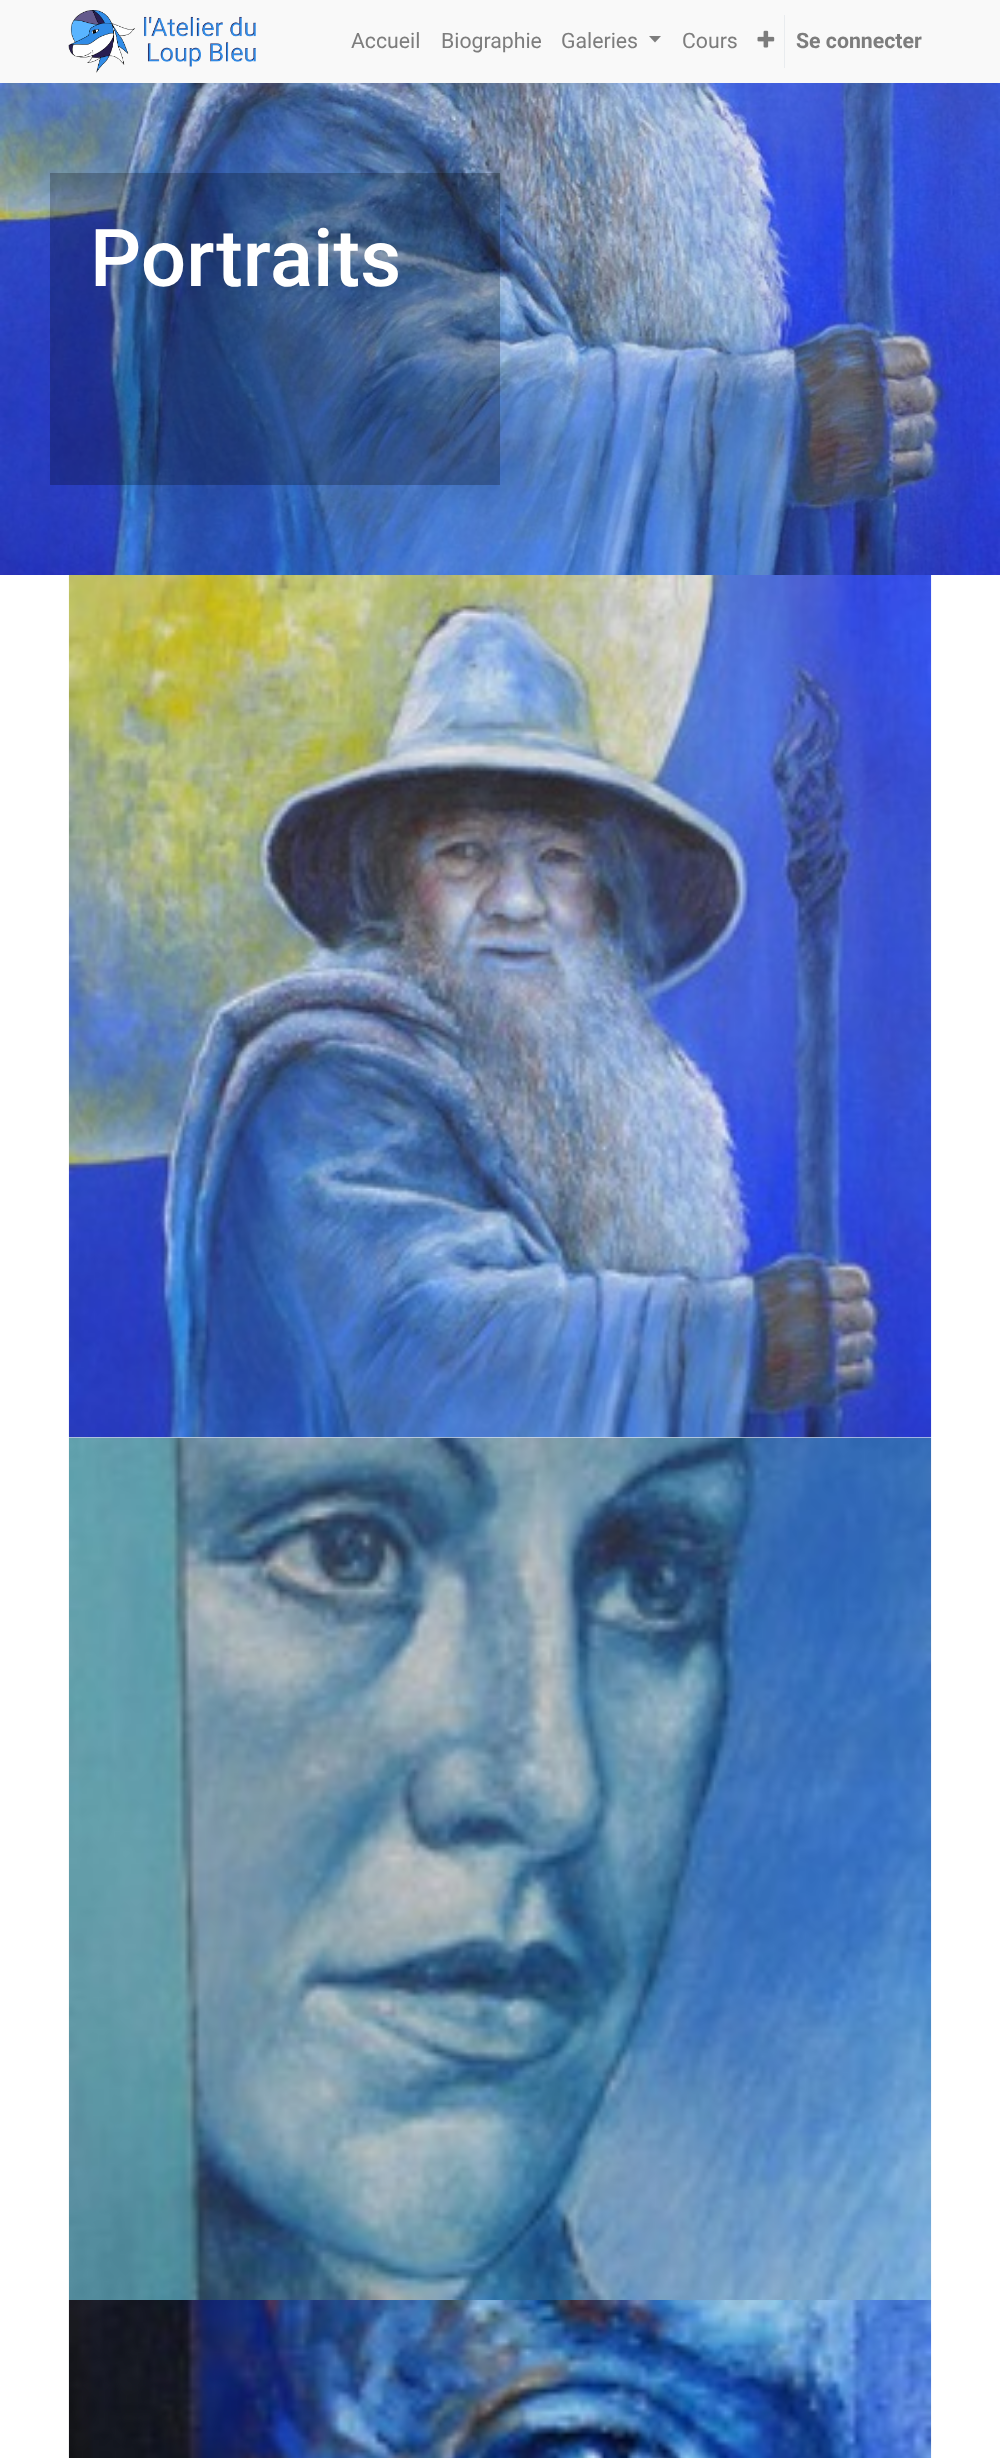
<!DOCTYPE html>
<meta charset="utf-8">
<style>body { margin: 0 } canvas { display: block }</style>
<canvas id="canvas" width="1000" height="2458"></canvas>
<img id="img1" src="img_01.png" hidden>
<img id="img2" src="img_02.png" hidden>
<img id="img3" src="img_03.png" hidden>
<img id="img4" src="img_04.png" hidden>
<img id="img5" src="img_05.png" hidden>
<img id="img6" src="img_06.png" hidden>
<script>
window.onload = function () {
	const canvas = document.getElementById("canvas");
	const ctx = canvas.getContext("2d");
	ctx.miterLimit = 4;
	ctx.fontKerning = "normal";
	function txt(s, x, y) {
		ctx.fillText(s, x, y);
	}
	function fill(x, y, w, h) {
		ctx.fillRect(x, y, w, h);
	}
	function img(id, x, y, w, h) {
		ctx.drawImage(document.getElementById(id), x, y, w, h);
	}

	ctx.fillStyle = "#FFFFFF";
	fill(0, 0, 1000, 2458);
	ctx.fillStyle = "#F9F9F9";
	fill(0, 0, 1000, 83);
	img("img1", 68, 10, 188, 63);
	ctx.fillStyle = "#7D7D7D";
	ctx.beginPath();
	ctx.moveTo(649, 36);
	ctx.lineTo(661, 36);
	ctx.lineTo(655, 42.5);
	ctx.closePath();
	ctx.fill();
	img("img2", 757, 30, 18, 18);
	ctx.fillStyle = "#E9ECEF";
	fill(784, 15, 1, 53);
	img("img3", 0, 83, 1000, 492);
	ctx.fillStyle = "rgba(0, 0, 0, 0.25)";
	fill(50, 173, 450, 312);
	img("img4", 68, 575, 864, 863);
	img("img5", 68, 1437, 864, 863);
	img("img6", 68, 2300, 864, 158);
	ctx.font = "21.25px Roboto";
	ctx.fillStyle = "#7D7D7D";
	txt("Accueil", 351, 48);
	txt("Biographie", 441, 48);
	txt("Galeries", 561, 48);
	txt("Cours", 682, 48);
	ctx.font = "bold 21.25px Roboto";
	txt("Se connecter", 796, 48);
	ctx.font = "500 80px Roboto";
	ctx.fillStyle = "#FFFFFF";
	txt("Portraits", 90, 286);
};
</script>
